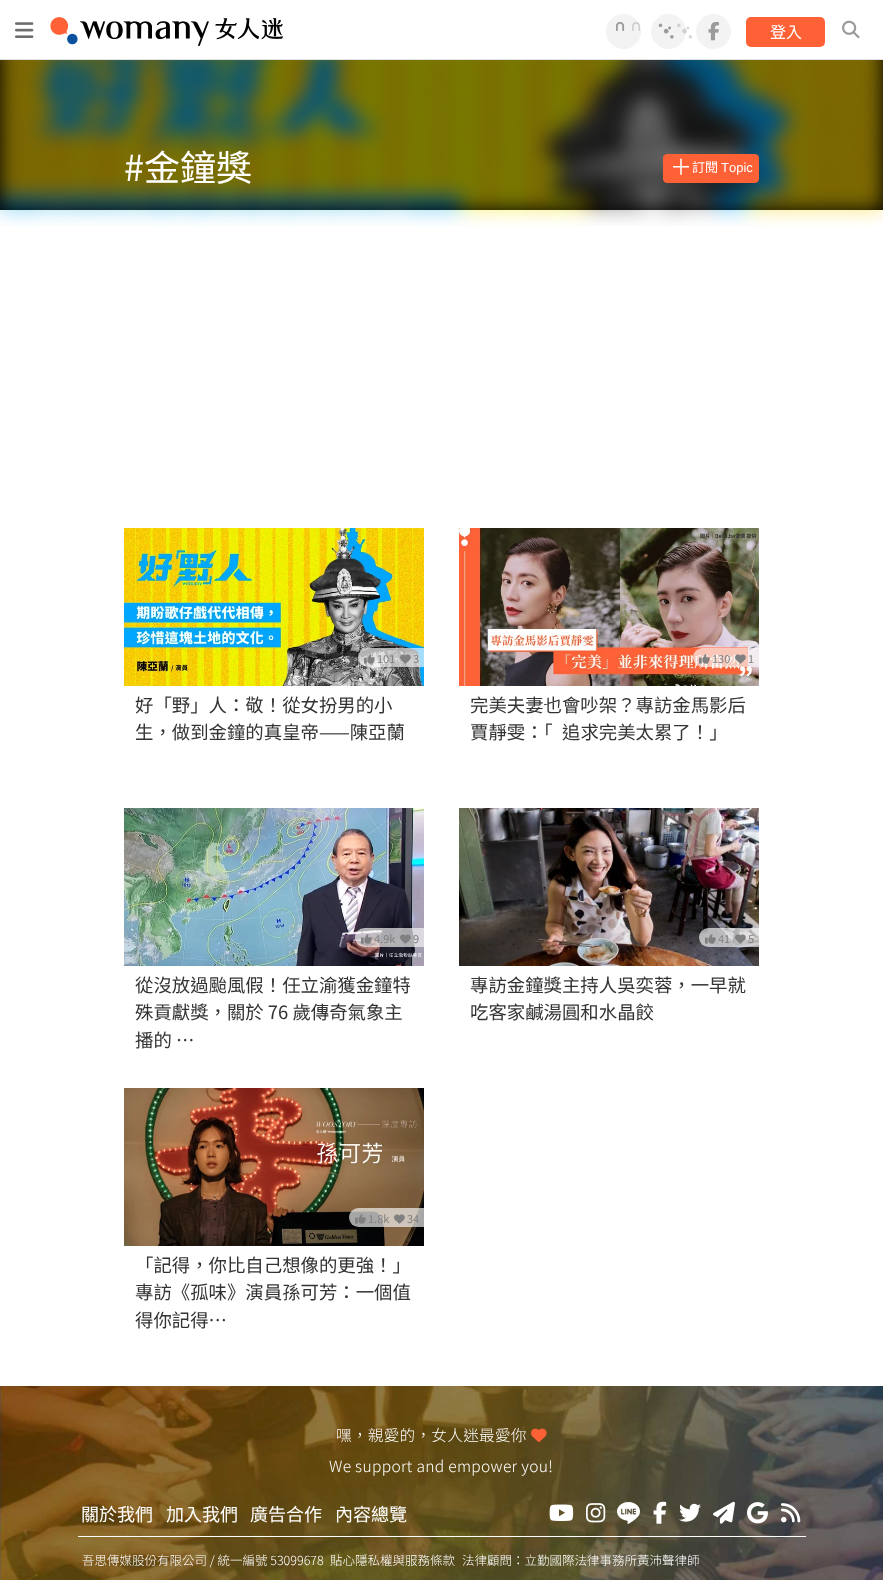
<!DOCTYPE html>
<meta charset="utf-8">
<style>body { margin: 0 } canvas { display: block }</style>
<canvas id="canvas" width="883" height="1580"></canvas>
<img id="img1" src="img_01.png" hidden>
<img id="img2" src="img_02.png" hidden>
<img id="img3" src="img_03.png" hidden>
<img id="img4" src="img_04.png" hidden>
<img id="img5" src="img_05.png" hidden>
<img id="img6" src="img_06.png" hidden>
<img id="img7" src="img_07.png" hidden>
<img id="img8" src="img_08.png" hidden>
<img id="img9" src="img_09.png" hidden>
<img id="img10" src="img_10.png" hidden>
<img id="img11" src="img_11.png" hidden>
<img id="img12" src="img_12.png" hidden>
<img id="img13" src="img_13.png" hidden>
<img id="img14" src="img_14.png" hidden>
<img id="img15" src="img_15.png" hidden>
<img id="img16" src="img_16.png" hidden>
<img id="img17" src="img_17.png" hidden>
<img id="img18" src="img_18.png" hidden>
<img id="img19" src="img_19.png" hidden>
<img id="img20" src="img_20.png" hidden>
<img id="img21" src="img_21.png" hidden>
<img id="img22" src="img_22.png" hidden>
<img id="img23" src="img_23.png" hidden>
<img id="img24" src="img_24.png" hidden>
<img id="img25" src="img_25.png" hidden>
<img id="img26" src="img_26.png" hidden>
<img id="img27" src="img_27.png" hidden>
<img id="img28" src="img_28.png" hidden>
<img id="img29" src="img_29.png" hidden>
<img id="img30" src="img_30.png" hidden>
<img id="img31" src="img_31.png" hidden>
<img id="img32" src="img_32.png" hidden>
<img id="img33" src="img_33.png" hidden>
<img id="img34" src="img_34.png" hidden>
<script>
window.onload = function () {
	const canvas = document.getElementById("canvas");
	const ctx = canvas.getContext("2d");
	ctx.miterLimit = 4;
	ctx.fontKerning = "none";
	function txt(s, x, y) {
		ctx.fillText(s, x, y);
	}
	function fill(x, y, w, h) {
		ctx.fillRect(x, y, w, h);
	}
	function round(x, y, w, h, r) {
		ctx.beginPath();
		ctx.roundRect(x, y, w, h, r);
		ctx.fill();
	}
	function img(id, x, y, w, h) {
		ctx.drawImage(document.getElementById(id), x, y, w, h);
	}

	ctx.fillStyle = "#FFFFFF";
	fill(0, 0, 883, 1580);
	ctx.fillStyle = "#E3E3E3";
	fill(0, 59, 883, 1);
	img("img1", 15, 22, 19, 16);
	img("img2", 50, 17, 233, 29);
	ctx.fillStyle = "#F3F3F3";
	ctx.beginPath();
	ctx.arc(623.5, 31.5, 17, 0, Math.PI * 2);
	ctx.fill();
	ctx.strokeStyle = "#F3F3F3";
	ctx.stroke();
	img("img3", 616, 22, 9, 9);
	img("img4", 616, 22, 25, 9);
	ctx.beginPath();
	ctx.arc(668.5, 31.5, 17, 0, Math.PI * 2);
	ctx.fill();
	ctx.stroke();
	img("img5", 658, 23, 16, 16);
	img("img6", 658, 23, 34, 16);
	ctx.beginPath();
	ctx.arc(713.5, 31.5, 17, 0, Math.PI * 2);
	ctx.fill();
	ctx.stroke();
	img("img7", 708, 21, 11, 20);
	ctx.fillStyle = "#FF6136";
	round(746, 17, 79, 30, 5);
	img("img8", 842, 20, 18, 19);
	ctx.fillStyle = "#000000";
	fill(0, 60, 883, 150);
	img("img9", 0, 60, 883, 166);
	ctx.fillStyle = "#FF6136";
	ctx.beginPath();
	ctx.roundRect(663.5, 154.5, 95, 28, 3.5);
	ctx.fill();
	ctx.strokeStyle = "#FF6136";
	ctx.stroke();
	img("img10", 124, 528, 300, 158);
	ctx.fillStyle = "rgba(247, 247, 247, 0.67)";
	ctx.beginPath();
	ctx.roundRect(358, 648, 66, 19, [9.5, 0, 0, 9.5]);
	ctx.fill();
	img("img11", 364, 654, 11, 10);
	img("img12", 400, 654, 11, 10);
	img("img13", 459, 528, 300, 158);
	ctx.beginPath();
	ctx.roundRect(693, 648, 66, 19, [9.5, 0, 0, 9.5]);
	ctx.fill();
	img("img14", 699, 654, 11, 10);
	img("img15", 735, 654, 11, 10);
	img("img16", 124, 808, 300, 158);
	ctx.beginPath();
	ctx.roundRect(355, 928, 69, 19, [9.5, 0, 0, 9.5]);
	ctx.fill();
	img("img17", 361, 934, 11, 10);
	img("img18", 400, 934, 11, 10);
	img("img19", 459, 808, 300, 158);
	ctx.beginPath();
	ctx.roundRect(699, 928, 60, 19, [9.5, 0, 0, 9.5]);
	ctx.fill();
	img("img20", 705, 934, 11, 10);
	img("img21", 735, 934, 11, 10);
	img("img22", 124, 1088, 300, 158);
	ctx.beginPath();
	ctx.roundRect(349, 1208, 75, 19, [9.5, 0, 0, 9.5]);
	ctx.fill();
	img("img23", 355, 1214, 11, 10);
	img("img24", 394, 1214, 11, 10);
	img("img25", 0, 1386, 883, 194);
	img("img26", 531, 1428, 16, 14);
	img("img27", 549, 1504, 25, 17);
	img("img28", 586, 1503, 20, 20);
	img("img29", 617, 1502, 23, 22);
	img("img30", 653, 1501, 14, 23);
	img("img31", 679, 1503, 22, 19);
	img("img32", 713, 1501, 22, 23);
	img("img33", 747, 1502, 21, 22);
	img("img34", 781, 1503, 20, 20);
	ctx.fillStyle = "#FFFFFF";
	fill(78, 1536, 728, 1);
	ctx.font = "16px Noto Sans TC";
	txt("登入", 770, 38);
	ctx.font = "36px Noto Sans TC";
	txt("#金鐘獎", 124, 181);
	ctx.font = "22px Noto Sans CJK TC";
	txt("＋", 670, 175);
	ctx.font = "13px Noto Sans CJK TC";
	txt("訂閱", 692, 172);
	ctx.font = "13px Liberation Sans";
	txt("Topic", 721, 172);
	ctx.font = "11px Noto Sans TC";
	ctx.fillStyle = "#808080";
	txt("101", 377, 663);
	txt("3", 413, 663);
	ctx.font = "18.4px Noto Sans TC";
	ctx.fillStyle = "#333333";
	txt("好「野」人：敬！從女扮男的小", 135, 712);
	txt("生，做到金鐘的真皇帝——陳亞蘭", 135, 739);
	ctx.font = "11px Noto Sans TC";
	ctx.fillStyle = "#808080";
	txt("130", 712, 663);
	txt("1", 748, 663);
	ctx.font = "18.4px Noto Sans TC";
	ctx.fillStyle = "#333333";
	txt("完美夫妻也會吵架？專訪金馬影后", 470, 712);
	txt("賈靜雯：「", 470, 739);
	txt("追求完美太累了！」", 562, 739);
	ctx.font = "11px Noto Sans TC";
	ctx.fillStyle = "#808080";
	txt("4.9k", 374, 943);
	txt("9", 413, 943);
	ctx.font = "18.4px Noto Sans TC";
	ctx.fillStyle = "#333333";
	txt("從沒放過颱風假！任立渝獲金鐘特", 135, 992);
	txt("殊貢獻獎，關於 76 歲傳奇氣象主", 135, 1019);
	txt("播的 …", 135, 1047);
	ctx.font = "11px Noto Sans TC";
	ctx.fillStyle = "#808080";
	txt("41", 718, 943);
	txt("5", 748, 943);
	ctx.font = "18.4px Noto Sans TC";
	ctx.fillStyle = "#333333";
	txt("專訪金鐘獎主持人吳奕蓉，一早就", 470, 992);
	txt("吃客家鹹湯圓和水晶餃", 470, 1019);
	ctx.font = "11px Noto Sans TC";
	ctx.fillStyle = "#808080";
	txt("1.8k", 368, 1223);
	txt("34", 407, 1223);
	ctx.font = "18.4px Noto Sans TC";
	ctx.fillStyle = "#333333";
	txt("「記得，你比自己想像的更強！」", 135, 1272);
	txt("專訪《孤味》演員孫可芳：一個值", 135, 1299);
	txt("得你記得…", 135, 1327);
	ctx.letterSpacing = "0.3px";
	ctx.font = "300 15.6px Noto Sans TC";
	ctx.fillStyle = "#FFFFFF";
	txt("嘿，親愛的，女人迷最愛你", 336, 1441);
	txt("We support and empower you!", 329, 1472);
	ctx.letterSpacing = "0px";
	ctx.font = "18px Noto Sans TC";
	txt("關於我們", 81, 1521);
	txt("加入我們", 166, 1521);
	txt("廣告合作", 250, 1521);
	txt("內容總覽", 335, 1521);
	ctx.font = "300 12.5px Noto Sans TC";
	txt("吾思傳媒股份有限公司 / 統一編號 53099678", 82, 1565);
	txt("貼心隱私權與服務條款", 330, 1565);
	txt("法律顧問：立勤國際法律事務所黃沛聲律師", 462, 1565);
};
</script>
